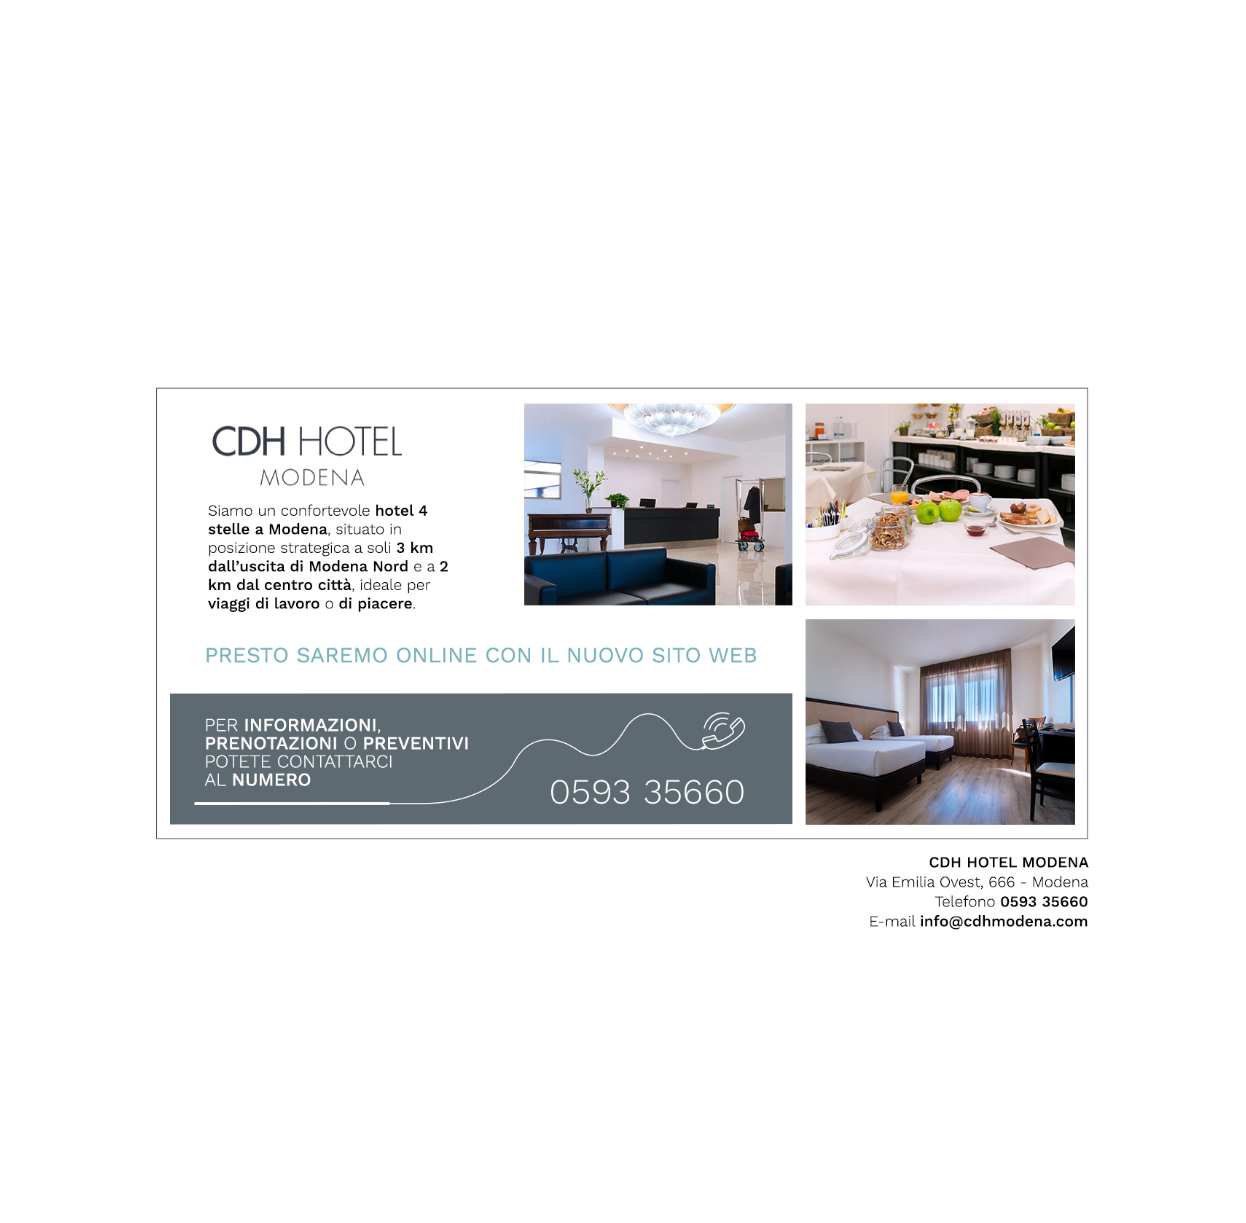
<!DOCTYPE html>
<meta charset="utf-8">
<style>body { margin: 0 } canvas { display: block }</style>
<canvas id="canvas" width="1246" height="1223"></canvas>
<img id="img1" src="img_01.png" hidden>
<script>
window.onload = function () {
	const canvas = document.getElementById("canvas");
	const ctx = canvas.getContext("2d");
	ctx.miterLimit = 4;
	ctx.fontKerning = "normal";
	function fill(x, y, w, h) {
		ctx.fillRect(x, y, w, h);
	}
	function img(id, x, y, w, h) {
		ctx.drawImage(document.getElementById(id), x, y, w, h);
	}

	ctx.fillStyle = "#FFFFFF";
	fill(0, 0, 1246, 1223);
	img("img1", 156, 387, 933, 543);
};
</script>
